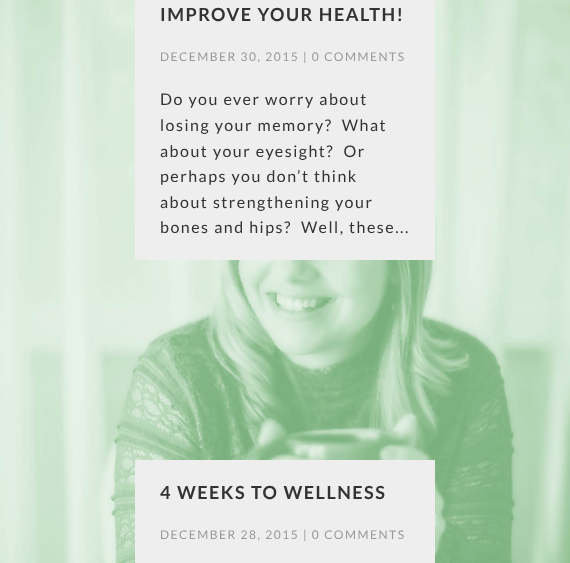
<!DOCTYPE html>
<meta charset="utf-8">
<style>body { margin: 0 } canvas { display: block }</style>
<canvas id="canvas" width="570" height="563"></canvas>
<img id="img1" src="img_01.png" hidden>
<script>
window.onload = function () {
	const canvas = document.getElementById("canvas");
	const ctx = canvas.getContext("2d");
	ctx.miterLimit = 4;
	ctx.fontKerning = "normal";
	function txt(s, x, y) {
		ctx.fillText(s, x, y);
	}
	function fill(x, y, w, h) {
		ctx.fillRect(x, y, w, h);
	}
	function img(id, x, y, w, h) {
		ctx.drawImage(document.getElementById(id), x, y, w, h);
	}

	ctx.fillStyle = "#FFFFFF";
	fill(0, 0, 570, 563);
	img("img1", 0, 0, 570, 563);
	ctx.fillStyle = "#EEEEEE";
	fill(135, 0, 300, 260);
	fill(135, 460, 300, 103);
	ctx.letterSpacing = "1.5px";
	ctx.font = "bold 18px Lato";
	ctx.fillStyle = "#333333";
	txt("IMPROVE YOUR HEALTH!", 160, 21);
	ctx.font = "12px Lato";
	ctx.fillStyle = "#999999";
	txt("DECEMBER 30, 2015 | 0 COMMENTS", 160, 61);
	ctx.font = "16px Lato";
	ctx.fillStyle = "#333333";
	txt("Do you ever worry about", 160, 105);
	txt("losing your memory?  What", 160, 131);
	txt("about your eyesight?  Or", 160, 157);
	txt("perhaps you don’t think", 160, 182);
	txt("about strengthening your", 160, 208);
	txt("bones and hips?  Well, these...", 160, 233);
	ctx.font = "bold 18px Lato";
	txt("4 WEEKS TO WELLNESS", 160, 499);
	ctx.font = "12px Lato";
	ctx.fillStyle = "#999999";
	txt("DECEMBER 28, 2015 | 0 COMMENTS", 160, 539);
};
</script>
